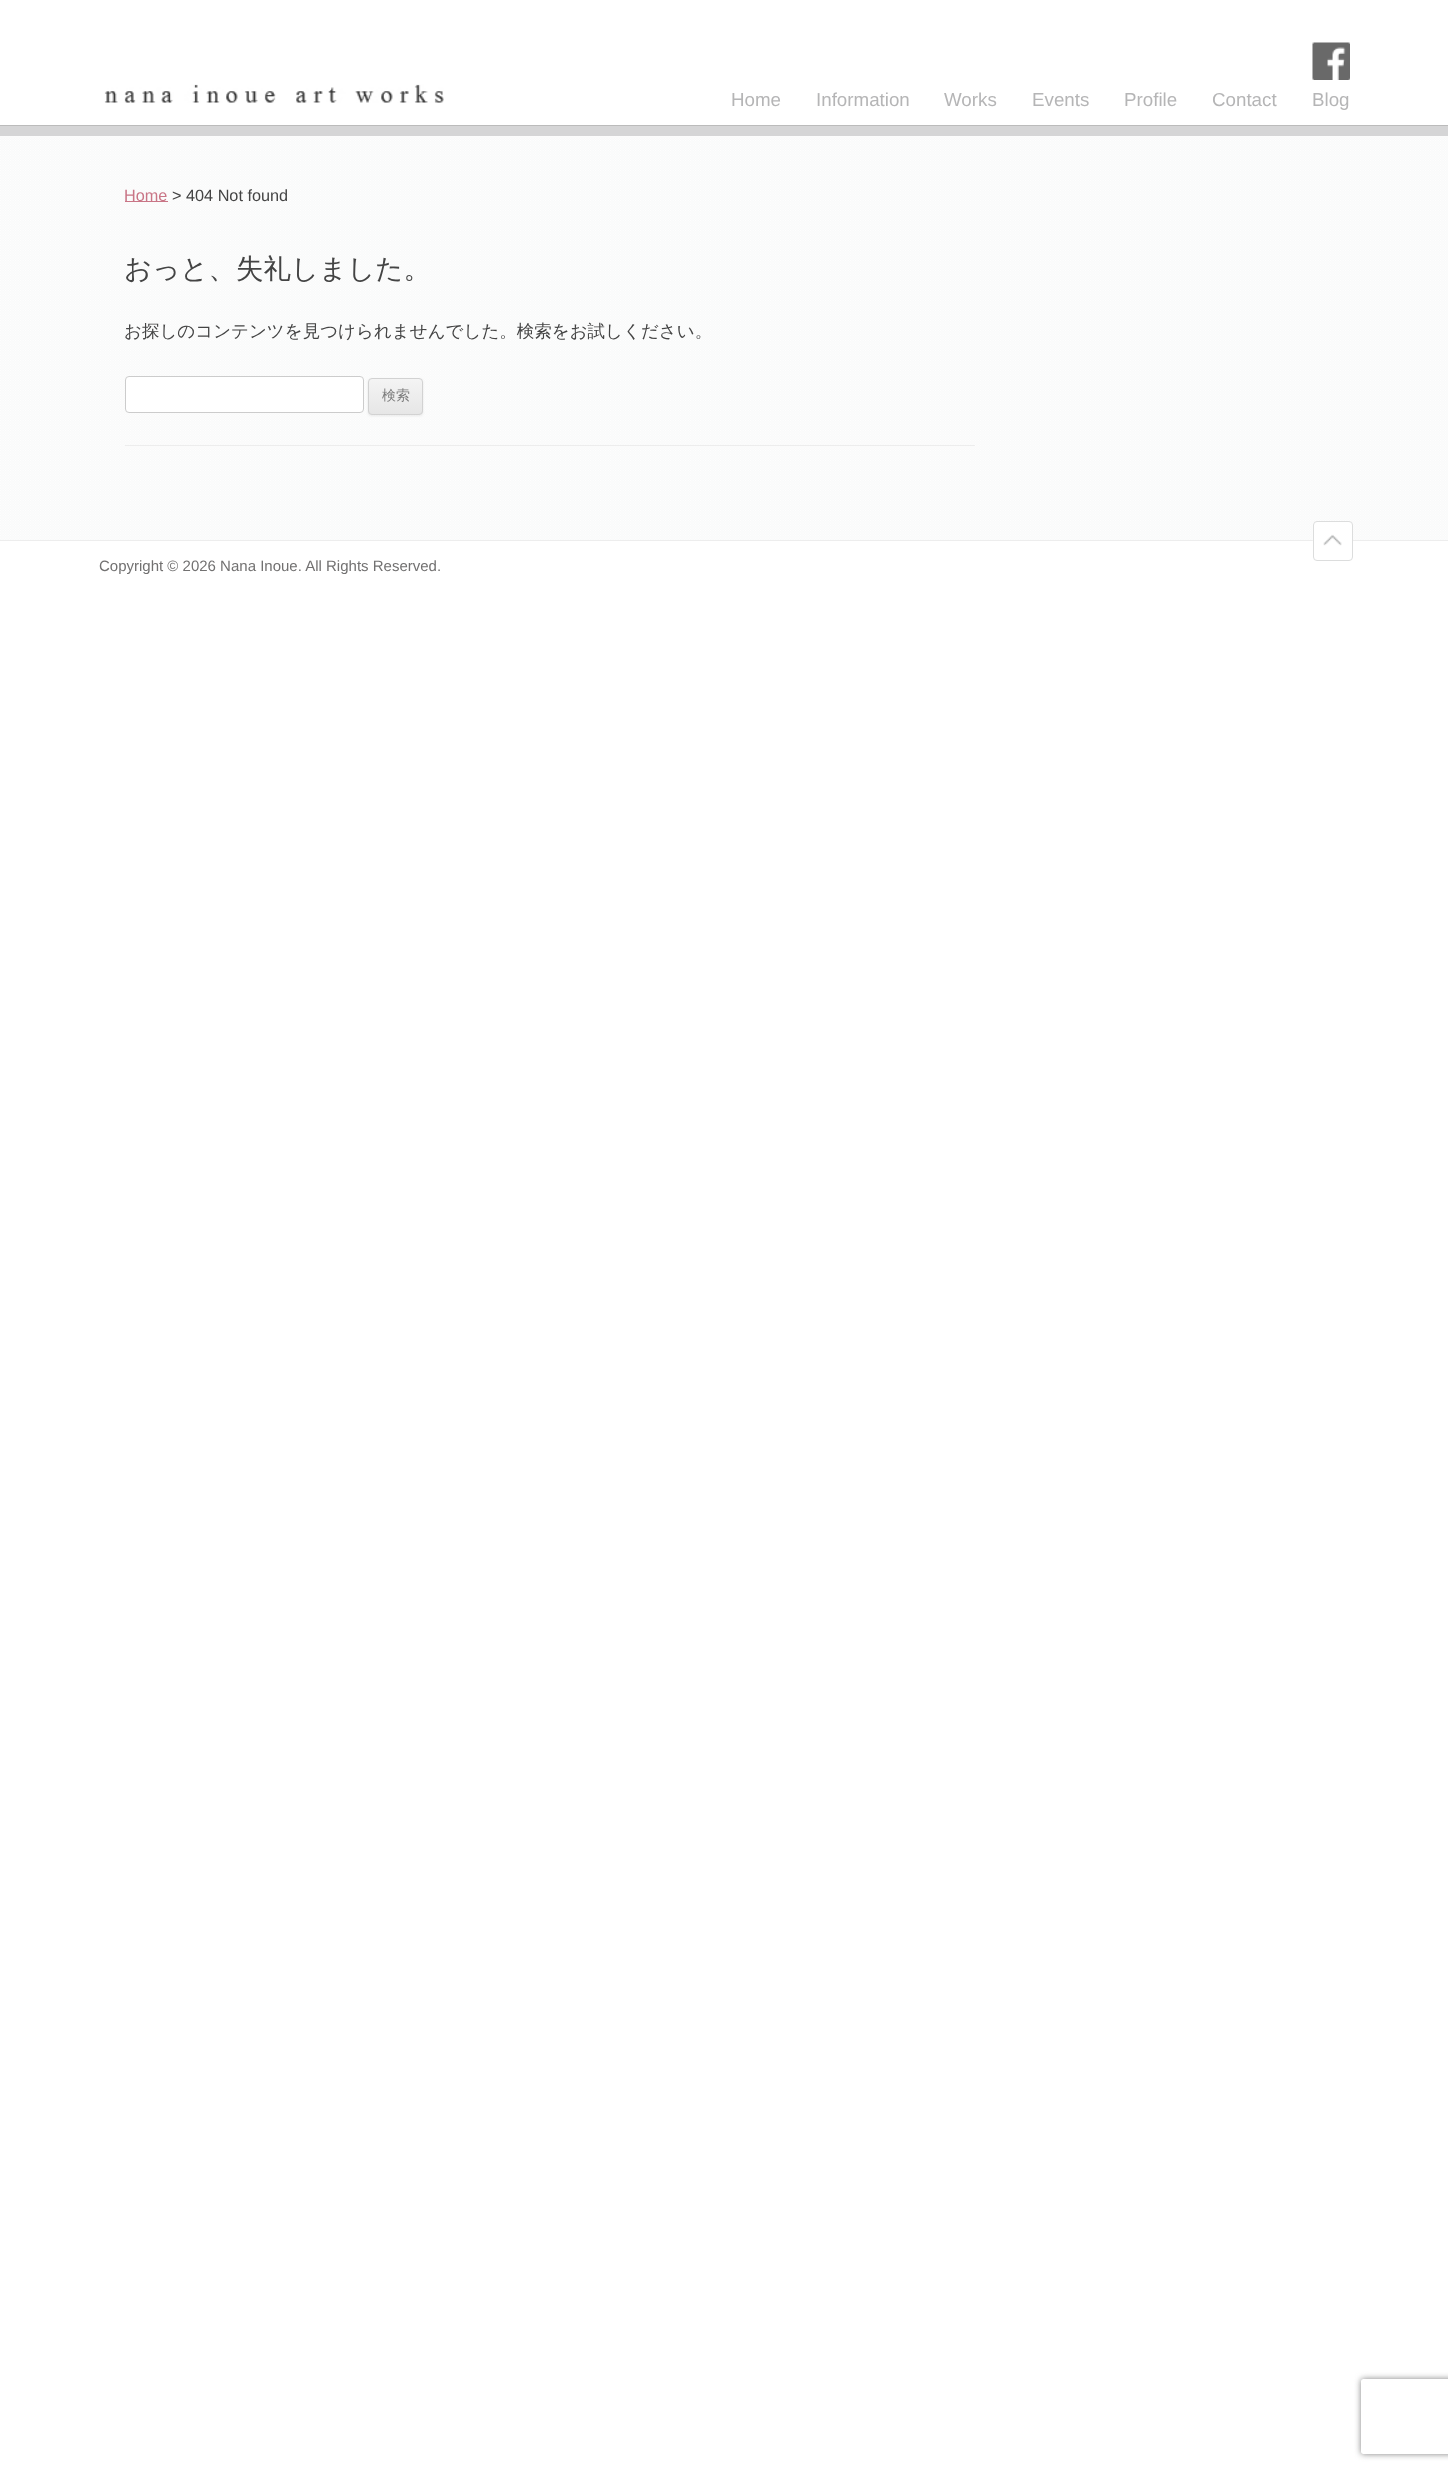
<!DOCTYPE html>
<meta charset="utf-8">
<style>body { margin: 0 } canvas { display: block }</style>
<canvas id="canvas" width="1448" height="2471"></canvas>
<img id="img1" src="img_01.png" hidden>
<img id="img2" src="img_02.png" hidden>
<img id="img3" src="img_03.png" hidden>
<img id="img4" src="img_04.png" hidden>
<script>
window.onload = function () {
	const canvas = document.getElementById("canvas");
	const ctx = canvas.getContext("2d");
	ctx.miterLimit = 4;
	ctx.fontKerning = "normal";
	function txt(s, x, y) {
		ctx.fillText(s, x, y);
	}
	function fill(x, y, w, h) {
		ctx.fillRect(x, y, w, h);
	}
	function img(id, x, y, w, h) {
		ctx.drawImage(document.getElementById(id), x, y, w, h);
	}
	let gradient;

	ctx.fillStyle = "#FFFFFF";
	fill(0, 0, 1448, 2471);
	img("img1", 1312, 42, 38, 38);
	img("img2", 104, 84, 340, 19);
	ctx.fillStyle = "#D5D5D6";
	fill(0, 126, 1448, 10);
	ctx.fillStyle = "#BBBBBB";
	fill(0, 125, 1448, 1);
	img("img3", 0, 136, 1448, 404);
	ctx.fillStyle = "#C97586";
	fill(125, 201, 43, 1);
	ctx.fillStyle = "#EDEDED";
	fill(125, 445, 850, 1);
	ctx.fillStyle = "#FFFFFF";
	ctx.beginPath();
	ctx.roundRect(125.5, 376.5, 238, 36, 3.5);
	ctx.fill();
	ctx.strokeStyle = "#CCCCCC";
	ctx.stroke();
	ctx.fillStyle = "rgba(64, 64, 64, 0.1)";
	ctx.filter = "blur(1px)";
	ctx.beginPath();
	ctx.roundRect(368, 379, 55, 37, 4);
	ctx.fill();
	ctx.filter = "none";
	ctx.save();
	ctx.beginPath();
	ctx.roundRect(368, 378, 55, 37, 4);
	ctx.clip();
	gradient = ctx.createLinearGradient(395, 379, 395, 414);
	gradient.addColorStop(0, "#F4F4F4");
	gradient.addColorStop(1, "#E6E6E6");
	ctx.fillStyle = gradient;
	fill(368, 379, 55, 35);
	ctx.restore();
	ctx.beginPath();
	ctx.roundRect(368.5, 378.5, 54, 36, 3.5);
	ctx.strokeStyle = "#D2D2D2";
	ctx.stroke();
	ctx.fillStyle = "#EDEDED";
	fill(0, 540, 1448, 1);
	img("img4", 1312, 522, 41, 24);
	ctx.beginPath();
	ctx.roundRect(1313.5, 521.5, 39, 39, 3.5);
	ctx.strokeStyle = "#DCDDDD";
	ctx.stroke();
	ctx.save();
	ctx.beginPath();
	ctx.moveTo(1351, 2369);
	ctx.lineTo(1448, 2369);
	ctx.lineTo(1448, 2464);
	ctx.lineTo(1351, 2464);
	ctx.closePath();
	ctx.moveTo(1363.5, 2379);
	ctx.lineTo(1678.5, 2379);
	ctx.bezierCurveTo(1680, 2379, 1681, 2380, 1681, 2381.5);
	ctx.lineTo(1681, 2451.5);
	ctx.bezierCurveTo(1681, 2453, 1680, 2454, 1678.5, 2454);
	ctx.lineTo(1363.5, 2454);
	ctx.bezierCurveTo(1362, 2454, 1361, 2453, 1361, 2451.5);
	ctx.lineTo(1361, 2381.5);
	ctx.bezierCurveTo(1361, 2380, 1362, 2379, 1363.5, 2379);
	ctx.closePath();
	ctx.clip("evenodd");
	ctx.fillStyle = "#808080";
	ctx.filter = "blur(3px)";
	ctx.beginPath();
	ctx.roundRect(1361, 2379, 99, 75, 2.5);
	ctx.fill();
	ctx.filter = "none";
	ctx.restore();
	ctx.font = "18.75px Liberation Sans";
	ctx.fillStyle = "#B5B5B6";
	txt("Home", 731, 106);
	txt("Information", 816, 106);
	txt("Works", 944, 106);
	txt("Events", 1032, 106);
	txt("Profile", 1124, 106);
	txt("Contact", 1212, 106);
	txt("Blog", 1312, 106);
	ctx.font = "16.25px Liberation Sans";
	ctx.fillStyle = "#C97586";
	txt("Home", 124, 201);
	ctx.fillStyle = "#444444";
	txt("> 404 Not found", 172, 201);
	ctx.font = "500 27.5px WenQuanYi Zen Hei";
	txt("おっと、失礼しました。", 124, 278);
	ctx.font = "500 17.5px WenQuanYi Zen Hei";
	txt("お探しのコンテンツを見つけられませんでした。検索をお試しください。", 124, 337);
	ctx.font = "500 14px WenQuanYi Zen Hei";
	ctx.fillStyle = "#7C7C7C";
	txt("検索", 382, 400);
	ctx.font = "15px Liberation Sans";
	ctx.fillStyle = "#727171";
	txt("Copyright © 2026 Nana Inoue. All Rights Reserved.", 99, 571);
};
</script>
